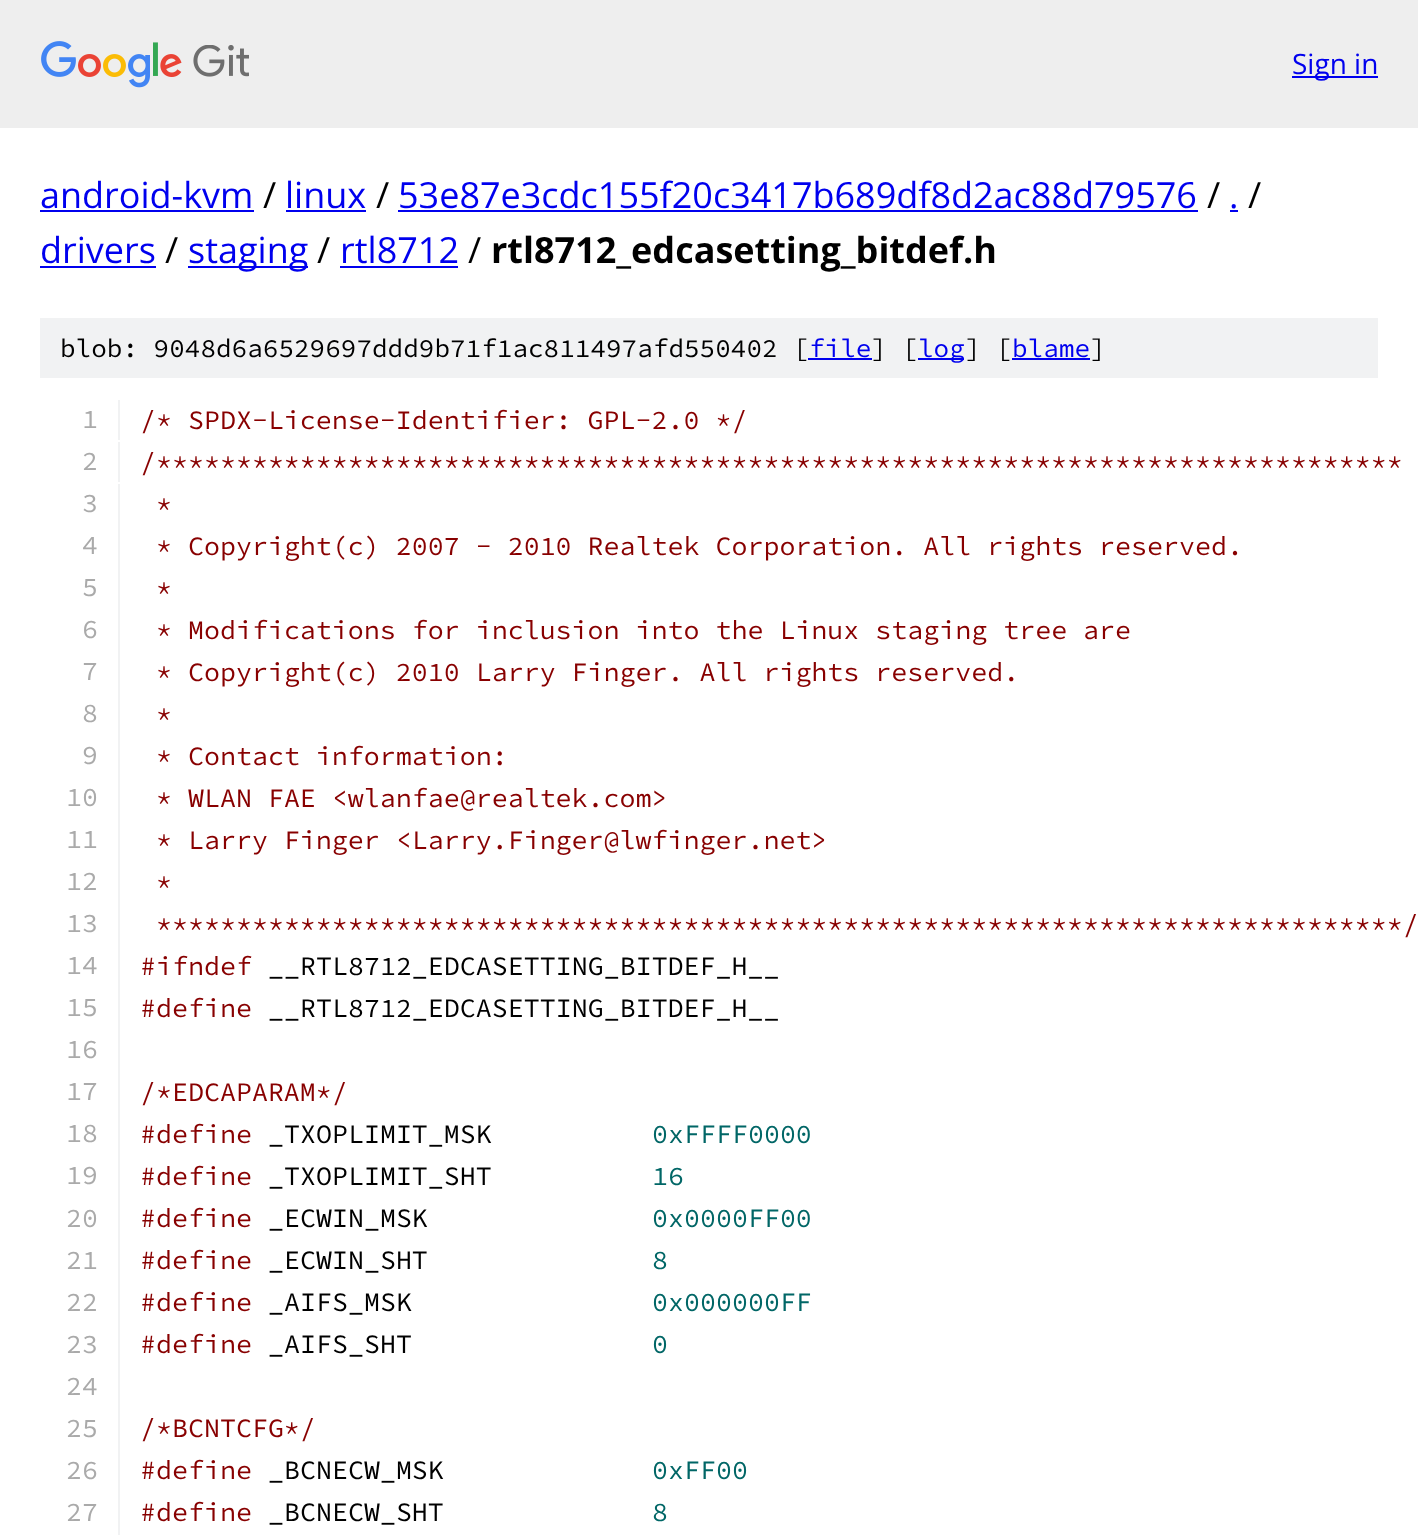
<!DOCTYPE html>
<meta charset="utf-8">
<style>body { margin: 0 } canvas { display: block }</style>
<canvas id="canvas" width="1418" height="1535"></canvas>
<img id="img1" src="img_01.png" hidden>
<script>
window.onload = function () {
	const canvas = document.getElementById("canvas");
	const ctx = canvas.getContext("2d");
	ctx.miterLimit = 4;
	ctx.fontKerning = "normal";
	function txt(s, x, y) {
		ctx.fillText(s, x, y);
	}
	function fill(x, y, w, h) {
		ctx.fillRect(x, y, w, h);
	}
	function img(id, x, y, w, h) {
		ctx.drawImage(document.getElementById(id), x, y, w, h);
	}

	ctx.fillStyle = "#FFFFFF";
	fill(0, 0, 1418, 1535);
	ctx.fillStyle = "#EEEEEE";
	fill(0, 0, 1418, 128);
	img("img1", 41, 41, 208, 47);
	ctx.fillStyle = "#0000EE";
	fill(1292, 76, 86, 2);
	fill(40, 210, 214, 2);
	fill(286, 210, 80, 2);
	fill(398, 210, 800, 2);
	fill(1230, 210, 8, 2);
	fill(40, 266, 116, 2);
	fill(188, 266, 120, 2);
	fill(340, 266, 118, 2);
	ctx.fillStyle = "#F1F2F3";
	fill(40, 318, 1338, 60);
	ctx.fillStyle = "#0000EE";
	fill(808, 358, 64, 2);
	fill(918, 358, 46, 2);
	fill(1012, 358, 78, 2);
	ctx.fillStyle = "#F1F2F3";
	fill(118, 400, 2, 40);
	fill(118, 442, 2, 40);
	fill(118, 484, 2, 1051);
	ctx.font = "28px Open Sans";
	ctx.fillStyle = "#0000EE";
	txt("Sign in", 1292, 74);
	ctx.font = "36px Open Sans";
	txt("android-kvm", 40, 208);
	ctx.fillStyle = "#000000";
	txt("/", 263, 208);
	ctx.fillStyle = "#0000EE";
	txt("linux", 285, 208);
	ctx.fillStyle = "#000000";
	txt("/", 376, 208);
	ctx.fillStyle = "#0000EE";
	txt("53e87e3cdc155f20c3417b689df8d2ac88d79576", 398, 208);
	ctx.fillStyle = "#000000";
	txt("/", 1207, 208);
	ctx.fillStyle = "#0000EE";
	txt(".", 1229, 208);
	ctx.fillStyle = "#000000";
	txt("/", 1248, 208);
	ctx.fillStyle = "#0000EE";
	txt("drivers", 40, 263);
	ctx.fillStyle = "#000000";
	txt("/", 165, 263);
	ctx.fillStyle = "#0000EE";
	txt("staging", 188, 263);
	ctx.fillStyle = "#000000";
	txt("/", 317, 263);
	ctx.fillStyle = "#0000EE";
	txt("rtl8712", 340, 263);
	ctx.fillStyle = "#000000";
	txt("/", 468, 263);
	ctx.font = "bold 36px Open Sans";
	txt("rtl8712_edcasetting_bitdef.h", 491, 263);
	ctx.font = "200 26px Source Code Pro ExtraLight";
	txt("blob: 9048d6a6529697ddd9b71f1ac811497afd550402 [", 60, 357);
	ctx.fillStyle = "#0000EE";
	txt("file", 809, 357);
	ctx.fillStyle = "#000000";
	txt("] [", 871, 357);
	ctx.fillStyle = "#0000EE";
	txt("log", 918, 357);
	ctx.fillStyle = "#000000";
	txt("] [", 965, 357);
	ctx.fillStyle = "#0000EE";
	txt("blame", 1012, 357);
	ctx.fillStyle = "#000000";
	txt("]", 1090, 357);
	ctx.font = "200 26.65px Source Code Pro ExtraLight";
	ctx.fillStyle = "#AAAAAA";
	txt("1", 82, 428);
	ctx.fillStyle = "#880000";
	txt("/* SPDX-License-Identifier: GPL-2.0 */", 140, 429);
	ctx.fillStyle = "#AAAAAA";
	txt("2", 82, 470);
	ctx.fillStyle = "#880000";
	txt("/******************************************************************************", 140, 471);
	ctx.fillStyle = "#AAAAAA";
	txt("3", 82, 512);
	ctx.fillStyle = "#880000";
	txt("*", 156, 513);
	ctx.fillStyle = "#AAAAAA";
	txt("4", 82, 554);
	ctx.fillStyle = "#880000";
	txt("* Copyright(c) 2007 - 2010 Realtek Corporation. All rights reserved.", 156, 555);
	ctx.fillStyle = "#AAAAAA";
	txt("5", 82, 596);
	ctx.fillStyle = "#880000";
	txt("*", 156, 597);
	ctx.fillStyle = "#AAAAAA";
	txt("6", 82, 638);
	ctx.fillStyle = "#880000";
	txt("* Modifications for inclusion into the Linux staging tree are", 156, 639);
	ctx.fillStyle = "#AAAAAA";
	txt("7", 82, 680);
	ctx.fillStyle = "#880000";
	txt("* Copyright(c) 2010 Larry Finger. All rights reserved.", 156, 681);
	ctx.fillStyle = "#AAAAAA";
	txt("8", 82, 722);
	ctx.fillStyle = "#880000";
	txt("*", 156, 723);
	ctx.fillStyle = "#AAAAAA";
	txt("9", 82, 764);
	ctx.fillStyle = "#880000";
	txt("* Contact information:", 156, 765);
	ctx.fillStyle = "#AAAAAA";
	txt("10", 66, 806);
	ctx.fillStyle = "#880000";
	txt("* WLAN FAE <wlanfae@realtek.com>", 156, 807);
	ctx.fillStyle = "#AAAAAA";
	txt("11", 66, 848);
	ctx.fillStyle = "#880000";
	txt("* Larry Finger <Larry.Finger@lwfinger.net>", 156, 849);
	ctx.fillStyle = "#AAAAAA";
	txt("12", 66, 890);
	ctx.fillStyle = "#880000";
	txt("*", 156, 891);
	ctx.fillStyle = "#AAAAAA";
	txt("13", 66, 932);
	ctx.fillStyle = "#880000";
	txt("******************************************************************************/", 156, 933);
	ctx.fillStyle = "#AAAAAA";
	txt("14", 66, 974);
	ctx.fillStyle = "#880000";
	txt("#ifndef", 140, 975);
	ctx.fillStyle = "#000000";
	txt("__RTL8712_EDCASETTING_BITDEF_H__", 268, 975);
	ctx.fillStyle = "#AAAAAA";
	txt("15", 66, 1016);
	ctx.fillStyle = "#880000";
	txt("#define", 140, 1017);
	ctx.fillStyle = "#000000";
	txt("__RTL8712_EDCASETTING_BITDEF_H__", 268, 1017);
	ctx.fillStyle = "#AAAAAA";
	txt("16", 66, 1058);
	txt("17", 66, 1100);
	ctx.fillStyle = "#880000";
	txt("/*EDCAPARAM*/", 140, 1101);
	ctx.fillStyle = "#AAAAAA";
	txt("18", 66, 1142);
	ctx.fillStyle = "#880000";
	txt("#define", 140, 1143);
	ctx.fillStyle = "#000000";
	txt("_TXOPLIMIT_MSK", 268, 1143);
	ctx.fillStyle = "#006666";
	txt("0xFFFF0000", 652, 1143);
	ctx.fillStyle = "#AAAAAA";
	txt("19", 66, 1184);
	ctx.fillStyle = "#880000";
	txt("#define", 140, 1185);
	ctx.fillStyle = "#000000";
	txt("_TXOPLIMIT_SHT", 268, 1185);
	ctx.fillStyle = "#006666";
	txt("16", 652, 1185);
	ctx.fillStyle = "#AAAAAA";
	txt("20", 66, 1227);
	ctx.fillStyle = "#880000";
	txt("#define", 140, 1227);
	ctx.fillStyle = "#000000";
	txt("_ECWIN_MSK", 268, 1227);
	ctx.fillStyle = "#006666";
	txt("0x0000FF00", 652, 1227);
	ctx.fillStyle = "#AAAAAA";
	txt("21", 66, 1269);
	ctx.fillStyle = "#880000";
	txt("#define", 140, 1269);
	ctx.fillStyle = "#000000";
	txt("_ECWIN_SHT", 268, 1269);
	ctx.fillStyle = "#006666";
	txt("8", 652, 1269);
	ctx.fillStyle = "#AAAAAA";
	txt("22", 66, 1311);
	ctx.fillStyle = "#880000";
	txt("#define", 140, 1311);
	ctx.fillStyle = "#000000";
	txt("_AIFS_MSK", 268, 1311);
	ctx.fillStyle = "#006666";
	txt("0x000000FF", 652, 1311);
	ctx.fillStyle = "#AAAAAA";
	txt("23", 66, 1353);
	ctx.fillStyle = "#880000";
	txt("#define", 140, 1353);
	ctx.fillStyle = "#000000";
	txt("_AIFS_SHT", 268, 1353);
	ctx.fillStyle = "#006666";
	txt("0", 652, 1353);
	ctx.fillStyle = "#AAAAAA";
	txt("24", 66, 1395);
	txt("25", 66, 1437);
	ctx.fillStyle = "#880000";
	txt("/*BCNTCFG*/", 140, 1437);
	ctx.fillStyle = "#AAAAAA";
	txt("26", 66, 1479);
	ctx.fillStyle = "#880000";
	txt("#define", 140, 1479);
	ctx.fillStyle = "#000000";
	txt("_BCNECW_MSK", 268, 1479);
	ctx.fillStyle = "#006666";
	txt("0xFF00", 652, 1479);
	ctx.fillStyle = "#AAAAAA";
	txt("27", 66, 1521);
	ctx.fillStyle = "#880000";
	txt("#define", 140, 1521);
	ctx.fillStyle = "#000000";
	txt("_BCNECW_SHT", 268, 1521);
	ctx.fillStyle = "#006666";
	txt("8", 652, 1521);
};
</script>
